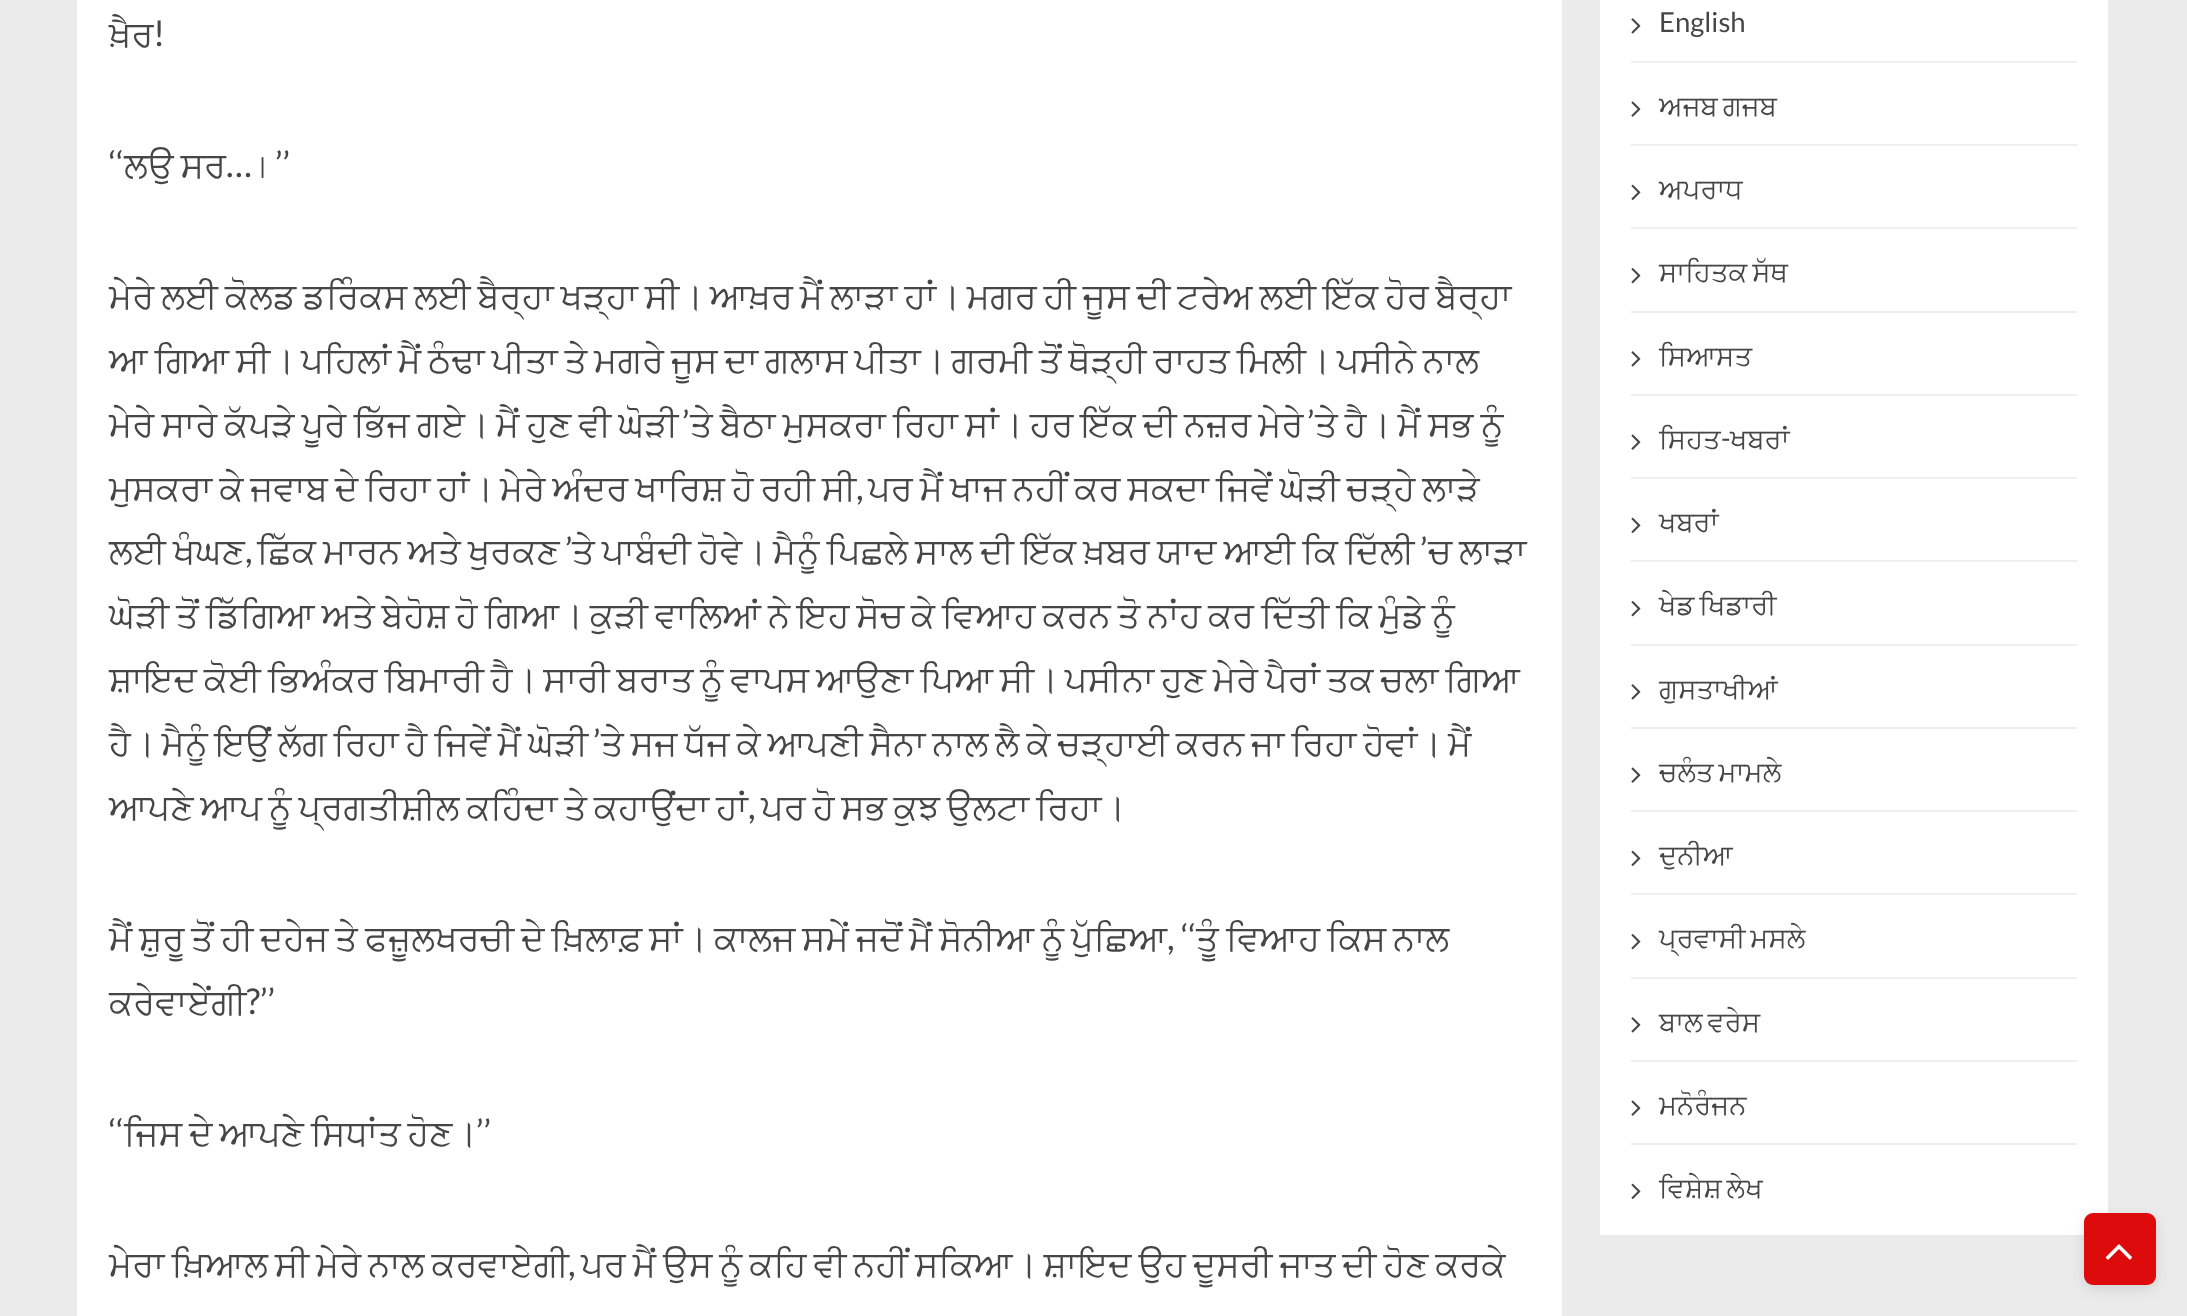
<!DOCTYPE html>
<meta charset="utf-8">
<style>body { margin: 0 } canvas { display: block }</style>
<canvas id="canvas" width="2187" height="1316"></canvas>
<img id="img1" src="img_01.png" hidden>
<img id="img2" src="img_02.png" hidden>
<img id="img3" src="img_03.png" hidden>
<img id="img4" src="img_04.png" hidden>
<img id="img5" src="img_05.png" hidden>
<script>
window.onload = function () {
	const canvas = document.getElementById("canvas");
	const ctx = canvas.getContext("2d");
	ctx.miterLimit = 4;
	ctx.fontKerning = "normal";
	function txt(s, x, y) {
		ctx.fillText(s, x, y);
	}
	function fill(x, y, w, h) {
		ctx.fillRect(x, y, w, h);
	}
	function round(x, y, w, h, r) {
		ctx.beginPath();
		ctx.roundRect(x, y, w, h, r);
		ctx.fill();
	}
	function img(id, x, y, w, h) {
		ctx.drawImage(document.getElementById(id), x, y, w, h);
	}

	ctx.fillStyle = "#EBEBEB";
	fill(0, 0, 2187, 1316);
	ctx.fillStyle = "#FFFFFF";
	fill(77, 0, 1485, 1316);
	fill(1600, 0, 508, 1235);
	ctx.fillStyle = "#EFEFEF";
	fill(1631, 61, 446, 2);
	img("img1", 1631, 18, 10, 16);
	fill(1631, 144, 446, 2);
	img("img2", 1631, 101, 10, 16);
	fill(1631, 227, 446, 2);
	img("img3", 1631, 184, 10, 16);
	fill(1631, 311, 446, 2);
	img("img4", 1631, 268, 10, 16);
	fill(1631, 394, 446, 2);
	img("img1", 1631, 351, 10, 16);
	fill(1631, 477, 446, 2);
	img("img2", 1631, 434, 10, 16);
	fill(1631, 560, 446, 2);
	img("img3", 1631, 517, 10, 16);
	fill(1631, 644, 446, 2);
	img("img4", 1631, 601, 10, 16);
	fill(1631, 727, 446, 2);
	img("img1", 1631, 684, 10, 16);
	fill(1631, 810, 446, 2);
	img("img2", 1631, 767, 10, 16);
	fill(1631, 893, 446, 2);
	img("img3", 1631, 850, 10, 16);
	fill(1631, 977, 446, 2);
	img("img4", 1631, 934, 10, 16);
	fill(1631, 1060, 446, 2);
	img("img1", 1631, 1017, 10, 16);
	fill(1631, 1143, 446, 2);
	img("img2", 1631, 1100, 10, 16);
	img("img3", 1631, 1183, 10, 16);
	ctx.fillStyle = "rgba(0, 0, 0, 0.1)";
	ctx.filter = "blur(7px)";
	ctx.beginPath();
	ctx.roundRect(2084, 1217, 72, 72, 9);
	ctx.fill();
	ctx.filter = "none";
	ctx.fillStyle = "#DD0B0B";
	round(2084, 1213, 72, 72, 9);
	img("img5", 2105, 1244, 27, 16);
	ctx.font = "35.45px FreeSans";
	ctx.fillStyle = "#464646";
	txt("ਖ਼ੈਰ", 109, 46);
	ctx.font = "35.45px Lato";
	txt("!", 153, 46);
	txt("‘‘", 109, 177);
	ctx.wordSpacing = "-2px";
	ctx.font = "35.45px FreeSans";
	txt("ਲਉ ਸਰ", 124, 177);
	ctx.wordSpacing = "0px";
	ctx.font = "35.45px Lato";
	txt("…", 226, 177);
	ctx.font = "35.45px FreeSans";
	txt("।", 251, 177);
	ctx.font = "35.45px Lato";
	txt("’’", 275, 177);
	ctx.wordSpacing = "-2px";
	ctx.font = "35.45px FreeSans";
	txt("ਮੇਰੇ ਲਈ ਕੋਲਡ ਡਰਿੰਕਸ ਲਈ ਬੈਰ੍ਹਾ ਖੜ੍ਹਾ ਸੀ। ਆਖ਼ਰ ਮੈਂ ਲਾੜਾ ਹਾਂ। ਮਗਰ ਹੀ ਜੂਸ ਦੀ ਟਰੇਅ ਲਈ ਇੱਕ ਹੋਰ ਬੈਰ੍ਹਾ", 109, 308);
	txt("ਆ ਗਿਆ ਸੀ। ਪਹਿਲਾਂ ਮੈਂ ਠੰਢਾ ਪੀਤਾ ਤੇ ਮਗਰੇ ਜੂਸ ਦਾ ਗਲਾਸ ਪੀਤਾ। ਗਰਮੀ ਤੋਂ ਥੋੜ੍ਹੀ ਰਾਹਤ ਮਿਲੀ। ਪਸੀਨੇ ਨਾਲ", 109, 372);
	ctx.wordSpacing = "-1.75px";
	txt("ਮੇਰੇ ਸਾਰੇ ਕੱਪੜੇ ਪੂਰੇ ਭਿੱਜ ਗਏ। ਮੈਂ ਹੁਣ ਵੀ ਘੋੜੀ", 109, 436);
	ctx.wordSpacing = "0px";
	ctx.font = "35.45px Lato";
	txt("’", 682, 436);
	ctx.wordSpacing = "-1.75px";
	ctx.font = "35.45px FreeSans";
	txt("ਤੇ ਬੈਠਾ ਮੁਸਕਰਾ ਰਿਹਾ ਸਾਂ। ਹਰ ਇੱਕ ਦੀ ਨਜ਼ਰ ਮੇਰੇ", 690, 436);
	ctx.wordSpacing = "0px";
	ctx.font = "35.45px Lato";
	txt("’", 1307, 436);
	ctx.wordSpacing = "-1.75px";
	ctx.font = "35.45px FreeSans";
	txt("ਤੇ ਹੈ। ਮੈਂ ਸਭ ਨੂੰ", 1315, 436);
	ctx.wordSpacing = "-1.9px";
	txt("ਮੁਸਕਰਾ ਕੇ ਜਵਾਬ ਦੇ ਰਿਹਾ ਹਾਂ। ਮੇਰੇ ਅੰਦਰ ਖਾਰਿਸ਼ ਹੋ ਰਹੀ ਸੀ", 109, 500);
	ctx.wordSpacing = "0px";
	ctx.font = "35.45px Lato";
	txt(",", 856, 500);
	ctx.wordSpacing = "-1.9px";
	ctx.font = "35.45px FreeSans";
	txt("ਪਰ ਮੈਂ ਖਾਜ ਨਹੀਂ ਕਰ ਸਕਦਾ ਜਿਵੇਂ ਘੋੜੀ ਚੜ੍ਹੇ ਲਾੜੇ", 868, 500);
	ctx.wordSpacing = "-1.75px";
	txt("ਲਈ ਖੰਘਣ", 109, 563);
	ctx.wordSpacing = "0px";
	ctx.font = "35.45px Lato";
	txt("’", 565, 563);
	txt("’", 1420, 563);
	txt(",", 245, 563);
	ctx.wordSpacing = "-1.75px";
	ctx.font = "35.45px FreeSans";
	txt("ਛਿੱਕ ਮਾਰਨ ਅਤੇ ਖੁਰਕਣ", 257, 563);
	txt("ਤੇ ਪਾਬੰਦੀ ਹੋਵੇ। ਮੈਨੂੰ ਪਿਛਲੇ ਸਾਲ ਦੀ ਇੱਕ ਖ਼ਬਰ ਯਾਦ ਆਈ ਕਿ ਦਿੱਲੀ", 572, 563);
	txt("ਚ ਲਾੜਾ", 1428, 563);
	ctx.wordSpacing = "-2px";
	txt("ਘੋੜੀ ਤੋਂ ਡਿੱਗਿਆ ਅਤੇ ਬੇਹੋਸ਼ ਹੋ ਗਿਆ। ਕੁੜੀ ਵਾਲਿਆਂ ਨੇ ਇਹ ਸੋਚ ਕੇ ਵਿਆਹ ਕਰਨ ਤੋ ਨਾਂਹ ਕਰ ਦਿੱਤੀ ਕਿ ਮੁੰਡੇ ਨੂੰ", 109, 627);
	txt("ਸ਼ਾਇਦ ਕੋਈ ਭਿਅੰਕਰ ਬਿਮਾਰੀ ਹੈ। ਸਾਰੀ ਬਰਾਤ ਨੂੰ ਵਾਪਸ ਆਉਣਾ ਪਿਆ ਸੀ। ਪਸੀਨਾ ਹੁਣ ਮੇਰੇ ਪੈਰਾਂ ਤਕ ਚਲਾ ਗਿਆ", 109, 691);
	txt("ਹੈ। ਮੈਨੂੰ ਇਉਂ ਲੱਗ ਰਿਹਾ ਹੈ ਜਿਵੇਂ ਮੈਂ ਘੋੜੀ", 109, 755);
	ctx.wordSpacing = "0px";
	ctx.font = "35.45px Lato";
	txt("’", 593, 755);
	ctx.wordSpacing = "-2px";
	ctx.font = "35.45px FreeSans";
	txt("ਤੇ ਸਜ ਧੱਜ ਕੇ ਆਪਣੀ ਸੈਨਾ ਨਾਲ ਲੈ ਕੇ ਚੜ੍ਹਾਈ ਕਰਨ ਜਾ ਰਿਹਾ ਹੋਵਾਂ। ਮੈਂ", 601, 755);
	txt("ਆਪਣੇ ਆਪ ਨੂੰ ਪ੍ਰਗਤੀਸ਼ੀਲ ਕਹਿੰਦਾ ਤੇ ਕਹਾਉਂਦਾ ਹਾਂ", 109, 819);
	ctx.wordSpacing = "0px";
	ctx.font = "35.45px Lato";
	txt(",", 748, 819);
	ctx.wordSpacing = "-2px";
	ctx.font = "35.45px FreeSans";
	txt("ਪਰ ਹੋ ਸਭ ਕੁਝ ਉਲਟਾ ਰਿਹਾ।", 761, 819);
	ctx.wordSpacing = "0px";
	txt("ਮੈਂ", 109, 950);
	txt("ਦਹੇਜ", 260, 950);
	txt("ਤੇ", 335, 950);
	txt("ਫਜ਼ੂਲਖਰਚੀ", 365, 950);
	txt("ਦੇ", 521, 950);
	txt("ਖ਼ਿਲਾਫ਼", 551, 950);
	txt("ਸਾਂ।", 649, 950);
	txt("ਸਮੇਂ", 802, 950);
	txt("ਜਦੋਂ", 856, 950);
	txt("ਮੈਂ", 909, 950);
	txt("ਸੋਨੀਆ", 939, 950);
	txt("ਨੂੰ", 1041, 950);
	txt("ਪੁੱਛਿਆ", 1071, 950);
	txt("ਵਿਆਹ", 1226, 950);
	txt("ਕਿਸ", 1327, 950);
	txt("ਸ਼ੁਰੂ", 139, 950);
	txt("ਤੋਂ", 191, 950);
	txt("ਹੀ", 221, 950);
	txt("ਕਾਲਜ", 714, 950);
	ctx.font = "35.45px Lato";
	txt(", ‘‘", 1167, 950);
	ctx.font = "35.45px FreeSans";
	txt("ਤੂੰ", 1196, 950);
	txt("ਨਾਲ", 1393, 950);
	txt("ਕਰੇਵਾਏਂਗੀ", 109, 1014);
	ctx.font = "35.45px Lato";
	txt("?’’", 246, 1014);
	txt("‘‘", 109, 1145);
	ctx.wordSpacing = "-2px";
	ctx.font = "35.45px FreeSans";
	txt("ਜਿਸ ਦੇ ਆਪਣੇ ਸਿਧਾਂਤ ਹੋਣ।", 124, 1145);
	ctx.wordSpacing = "0px";
	ctx.font = "35.45px Lato";
	txt("’’", 476, 1145);
	ctx.wordSpacing = "-1.9px";
	ctx.font = "35.45px FreeSans";
	txt("ਮੇਰਾ ਖ਼ਿਆਲ ਸੀ ਮੇਰੇ ਨਾਲ ਕਰਵਾਏਗੀ", 109, 1276);
	ctx.wordSpacing = "0px";
	ctx.font = "35.45px Lato";
	txt(",", 568, 1276);
	ctx.wordSpacing = "-1.9px";
	ctx.font = "35.45px FreeSans";
	txt("ਪਰ ਮੈਂ ਉਸ ਨੂੰ ਕਹਿ ਵੀ ਨਹੀਂ ਸਕਿਆ। ਸ਼ਾਇਦ ਉਹ ਦੂਸਰੀ ਜਾਤ ਦੀ ਹੋਣ ਕਰਕੇ", 581, 1276);
	ctx.wordSpacing = "0px";
	ctx.font = "27.5px Lato";
	txt("English", 1659, 32);
	ctx.wordSpacing = "-2px";
	ctx.font = "27.5px FreeSans";
	txt("ਅਜਬ ਗਜਬ", 1659, 115);
	ctx.wordSpacing = "0px";
	txt("ਅਪਰਾਧ", 1659, 198);
	ctx.wordSpacing = "-2px";
	txt("ਸਾਹਿਤਕ ਸੱਥ", 1659, 281);
	ctx.wordSpacing = "0px";
	txt("ਸਿਆਸਤ", 1659, 365);
	txt("ਸਿਹਤ", 1659, 448);
	ctx.font = "27.5px Lato";
	txt("-", 1721, 448);
	ctx.font = "27.5px FreeSans";
	txt("ਖਬਰਾਂ", 1730, 448);
	txt("ਖਬਰਾਂ", 1659, 531);
	ctx.wordSpacing = "-2px";
	txt("ਖੇਡ ਖਿਡਾਰੀ", 1659, 614);
	ctx.wordSpacing = "0px";
	txt("ਗੁਸਤਾਖੀਆਂ", 1659, 698);
	ctx.wordSpacing = "-2px";
	txt("ਚਲੰਤ ਮਾਮਲੇ", 1659, 781);
	ctx.wordSpacing = "0px";
	txt("ਦੁਨੀਆ", 1659, 864);
	ctx.wordSpacing = "-2px";
	txt("ਪ੍ਰਵਾਸੀ ਮਸਲੇ", 1659, 947);
	txt("ਬਾਲ ਵਰੇਸ", 1659, 1031);
	ctx.wordSpacing = "0px";
	txt("ਮਨੋਰੰਜਨ", 1659, 1114);
	ctx.wordSpacing = "-2px";
	txt("ਵਿਸ਼ੇਸ਼ ਲੇਖ", 1659, 1197);
};
</script>
